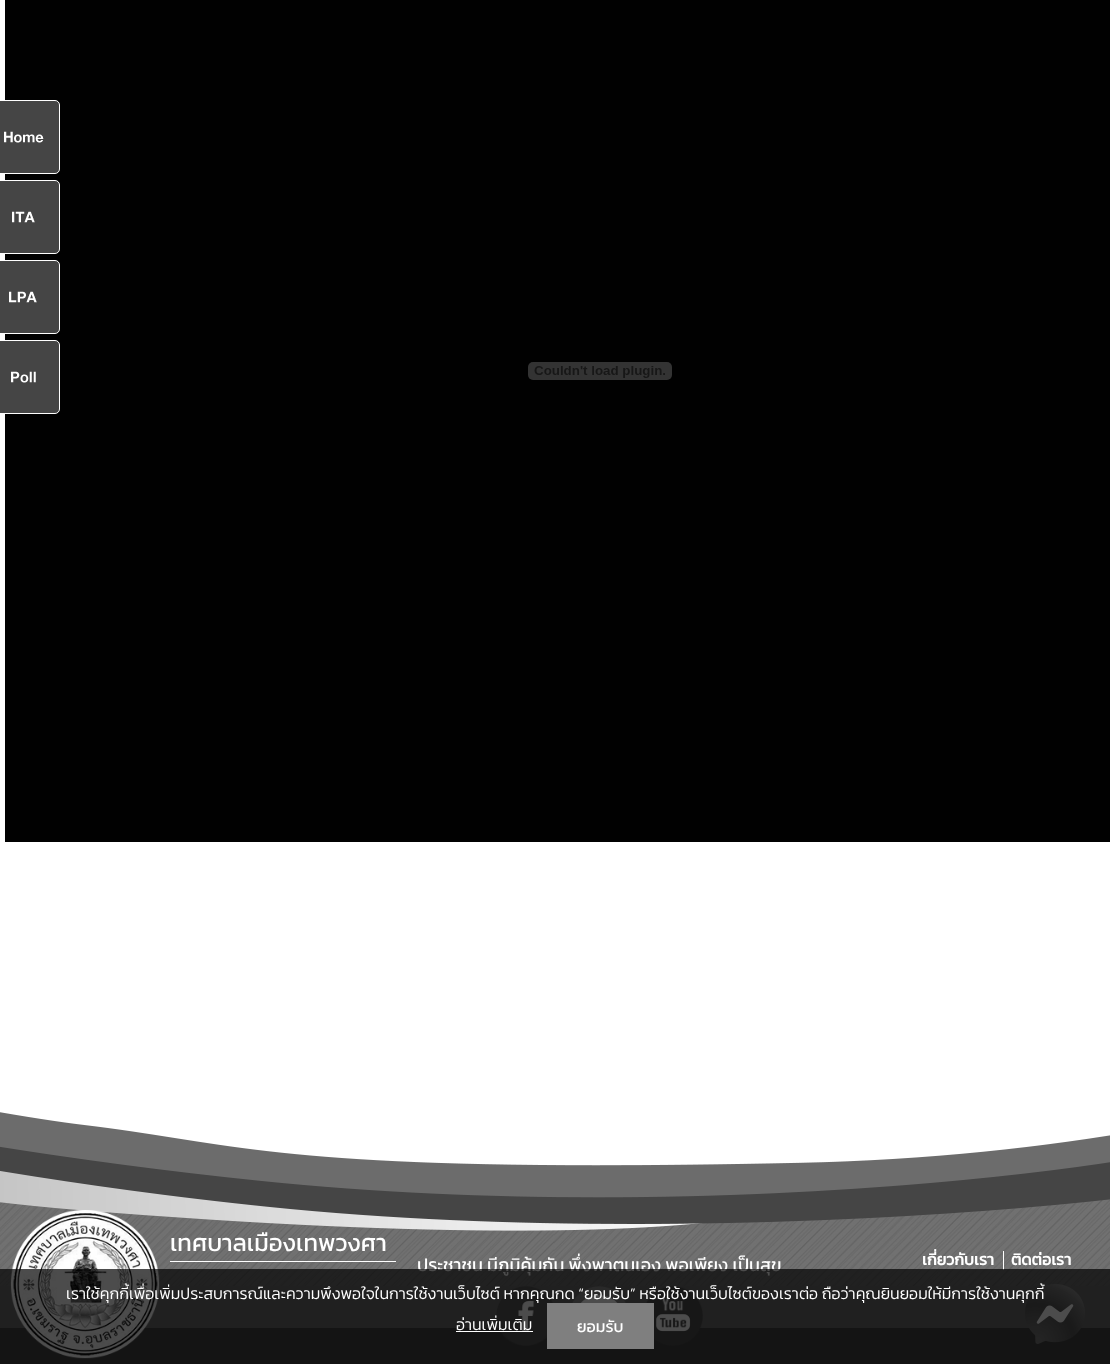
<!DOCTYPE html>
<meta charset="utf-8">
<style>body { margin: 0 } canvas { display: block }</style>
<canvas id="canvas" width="1110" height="1364"></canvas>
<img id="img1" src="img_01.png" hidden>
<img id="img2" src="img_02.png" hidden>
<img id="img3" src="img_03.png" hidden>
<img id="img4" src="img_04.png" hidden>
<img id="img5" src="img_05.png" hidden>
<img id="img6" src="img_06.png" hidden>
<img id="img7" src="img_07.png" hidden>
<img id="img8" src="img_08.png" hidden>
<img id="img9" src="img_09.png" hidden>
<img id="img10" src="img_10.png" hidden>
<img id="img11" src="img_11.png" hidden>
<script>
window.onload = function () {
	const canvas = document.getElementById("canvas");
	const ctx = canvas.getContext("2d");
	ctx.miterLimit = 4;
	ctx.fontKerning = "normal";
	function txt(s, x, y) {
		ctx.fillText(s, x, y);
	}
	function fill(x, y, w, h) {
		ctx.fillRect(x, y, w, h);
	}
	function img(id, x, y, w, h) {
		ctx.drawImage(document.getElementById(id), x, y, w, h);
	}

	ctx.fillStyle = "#FFFFFF";
	fill(0, 0, 1110, 1364);
	ctx.fillStyle = "#010101";
	fill(5, 0, 1105, 842);
	img("img1", 528, 362, 144, 18);
	ctx.fillStyle = "#454545";
	ctx.beginPath();
	ctx.moveTo(-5.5, 100.5);
	ctx.lineTo(55, 100.5);
	ctx.bezierCurveTo(57.5, 100.5, 59.5, 102.5, 59.5, 105);
	ctx.lineTo(59.5, 169);
	ctx.bezierCurveTo(59.5, 171.5, 57.5, 173.5, 55, 173.5);
	ctx.lineTo(-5.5, 173.5);
	ctx.closePath();
	ctx.fill();
	ctx.strokeStyle = "#FFFFFF";
	ctx.stroke();
	img("img2", 4, 131, 40, 12);
	ctx.beginPath();
	ctx.moveTo(-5.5, 180.5);
	ctx.lineTo(55, 180.5);
	ctx.bezierCurveTo(57.5, 180.5, 59.5, 182.5, 59.5, 185);
	ctx.lineTo(59.5, 249);
	ctx.bezierCurveTo(59.5, 251.5, 57.5, 253.5, 55, 253.5);
	ctx.lineTo(-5.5, 253.5);
	ctx.closePath();
	ctx.fill();
	ctx.stroke();
	img("img3", 12, 211, 23, 12);
	ctx.beginPath();
	ctx.moveTo(-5.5, 260.5);
	ctx.lineTo(55, 260.5);
	ctx.bezierCurveTo(57.5, 260.5, 59.5, 262.5, 59.5, 265);
	ctx.lineTo(59.5, 329);
	ctx.bezierCurveTo(59.5, 331.5, 57.5, 333.5, 55, 333.5);
	ctx.lineTo(-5.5, 333.5);
	ctx.closePath();
	ctx.fill();
	ctx.stroke();
	img("img4", 9, 291, 28, 12);
	ctx.beginPath();
	ctx.moveTo(-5.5, 340.5);
	ctx.lineTo(55, 340.5);
	ctx.bezierCurveTo(57.5, 340.5, 59.5, 342.5, 59.5, 345);
	ctx.lineTo(59.5, 409);
	ctx.bezierCurveTo(59.5, 411.5, 57.5, 413.5, 55, 413.5);
	ctx.lineTo(-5.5, 413.5);
	ctx.closePath();
	ctx.fill();
	ctx.stroke();
	img("img5", 11, 371, 25, 12);
	img("img6", 0, 1112, 1110, 252);
	img("img7", 10, 1210, 150, 149);
	ctx.fillStyle = "#FFFFFF";
	fill(170, 1261, 226, 1);
	img("img8", 496, 1286, 58, 60);
	img("img9", 571, 1286, 56, 17);
	img("img10", 645, 1286, 58, 60);
	fill(1003, 1251, 1, 19);
	img("img11", 1025, 1284, 60, 60);
	ctx.font = "24px Kanit";
	txt("เทศบาลเมืองเทพวงศา", 170, 1251);
	ctx.font = "18px Kanit";
	txt("ประชาชน มีภูมิคุ้มกัน พึ่งพาตนเอง พอเพียง เป็นสุข", 417, 1271);
	ctx.font = "bold 16px Kanit";
	txt("เกี่ยวกับเรา", 922, 1265);
	txt("ติดต่อเรา", 1011, 1265);
	ctx.fillStyle = "rgba(0, 0, 0, 0.7)";
	fill(0, 1269, 1110, 95);
	ctx.font = "300 16px Kanit";
	ctx.fillStyle = "#FFFFFF";
	txt("เราใช้คุกกี้เพื่อเพิ่มประสบการณ์และความพึงพอใจในการใช้งานเว็บไซต์ หากคุณกด “ยอมรับ” หรือใช้งานเว็บไซต์ของเราต่อ ถือว่าคุณยินยอมให้มีการใช้งานคุกกี้", 66, 1299);
	txt("อ่านเพิ่มเติม", 456, 1330);
	fill(456, 1331, 77, 1);
	ctx.fillStyle = "#7F7F7F";
	fill(547, 1303, 107, 46);
	ctx.font = "16px Kanit";
	ctx.fillStyle = "#FFFFFF";
	txt("ยอมรับ", 577, 1332);
};
</script>
